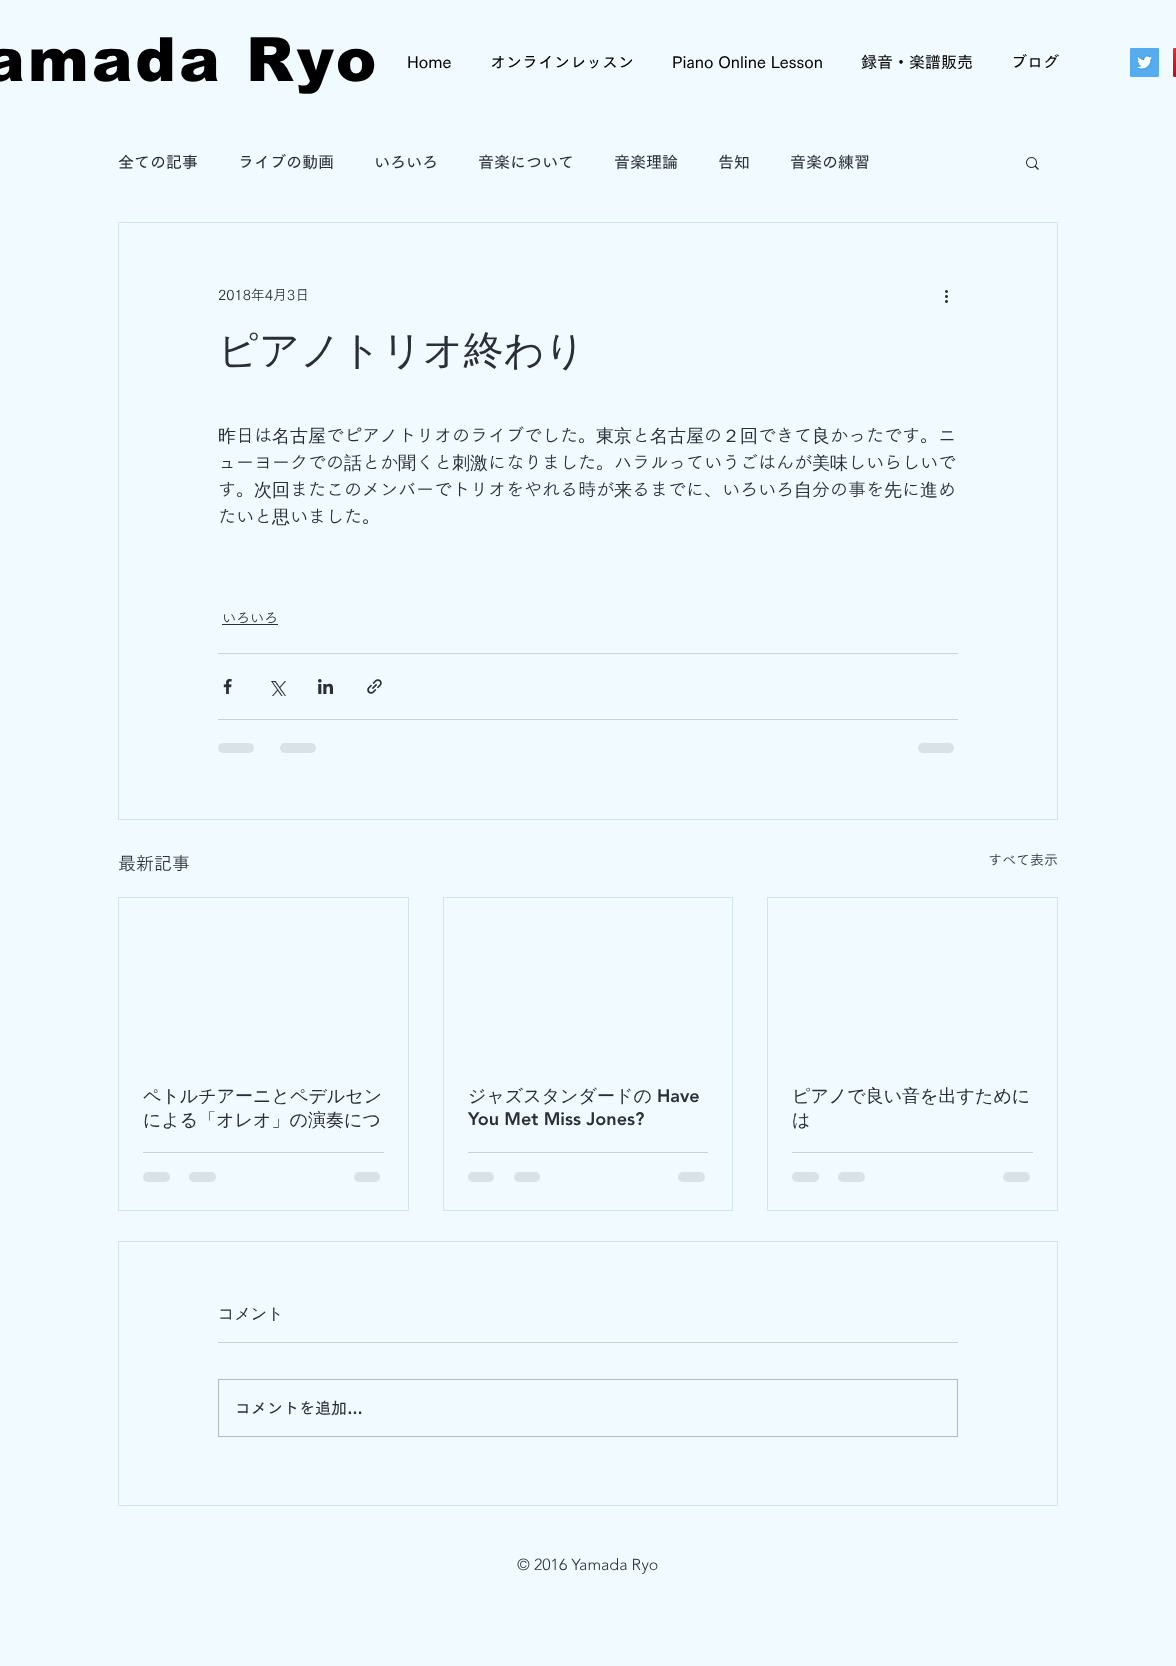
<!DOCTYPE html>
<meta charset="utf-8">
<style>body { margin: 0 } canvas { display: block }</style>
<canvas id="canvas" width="1176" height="1666"></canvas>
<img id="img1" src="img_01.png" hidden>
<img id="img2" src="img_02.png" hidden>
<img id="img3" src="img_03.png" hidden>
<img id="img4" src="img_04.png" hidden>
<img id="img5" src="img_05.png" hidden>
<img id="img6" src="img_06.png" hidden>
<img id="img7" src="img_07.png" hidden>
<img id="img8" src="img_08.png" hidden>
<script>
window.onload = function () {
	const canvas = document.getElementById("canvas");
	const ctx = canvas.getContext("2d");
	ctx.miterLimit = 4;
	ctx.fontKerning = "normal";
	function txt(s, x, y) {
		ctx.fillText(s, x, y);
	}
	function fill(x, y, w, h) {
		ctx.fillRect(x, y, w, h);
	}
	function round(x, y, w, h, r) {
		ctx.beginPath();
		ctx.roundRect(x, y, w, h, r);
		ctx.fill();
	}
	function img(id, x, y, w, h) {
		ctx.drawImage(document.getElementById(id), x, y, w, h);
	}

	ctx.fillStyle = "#F0FAFF";
	fill(0, 0, 1176, 1666);
	img("img1", 1130, 48, 29, 29);
	img("img2", 1173, 48, 3, 29);
	img("img3", 1026, 157, 13, 13);
	ctx.strokeStyle = "#D4E4EC";
	ctx.strokeRect(118.5, 222.5, 939, 597);
	img("img4", 945, 290, 3, 13);
	ctx.fillStyle = "#292F33";
	fill(222, 624, 56, 1);
	ctx.fillStyle = "#C8D1D6";
	fill(218, 653, 740, 1);
	img("img5", 223, 679, 9, 15);
	img("img6", 271, 681, 15, 15);
	img("img7", 318, 679, 15, 15);
	img("img8", 367, 679, 15, 15);
	fill(218, 719, 740, 1);
	ctx.fillStyle = "#D8E2E7";
	round(218, 743, 36, 10, 5);
	round(280, 743, 36, 10, 5);
	round(918, 743, 36, 10, 5);
	ctx.strokeRect(118.5, 897.5, 290, 313);
	ctx.fillStyle = "#C8D1D6";
	fill(143, 1152, 241, 1);
	ctx.fillStyle = "#D8E2E7";
	round(143, 1172, 27, 10, 5);
	round(189, 1172, 27, 10, 5);
	round(354, 1172, 26, 10, 5);
	ctx.strokeRect(443.5, 897.5, 289, 313);
	ctx.fillStyle = "#C8D1D6";
	fill(468, 1152, 240, 1);
	ctx.fillStyle = "#D8E2E7";
	round(468, 1172, 26, 10, 5);
	round(514, 1172, 26, 10, 5);
	round(678, 1172, 27, 10, 5);
	ctx.strokeRect(767.5, 897.5, 290, 313);
	ctx.fillStyle = "#C8D1D6";
	fill(792, 1152, 241, 1);
	ctx.fillStyle = "#D8E2E7";
	round(792, 1172, 27, 10, 5);
	round(838, 1172, 27, 10, 5);
	round(1003, 1172, 27, 10, 5);
	ctx.strokeRect(118.5, 1241.5, 939, 264);
	ctx.fillStyle = "#C8D1D6";
	fill(218, 1342, 740, 1);
	ctx.strokeStyle = "#B4BDC2";
	ctx.strokeRect(218.5, 1379.5, 739, 57);
	ctx.letterSpacing = "3px";
	ctx.font = "900 61px arial";
	ctx.fillStyle = "#000000";
	txt("amada Ryo", -16, 81);
	ctx.letterSpacing = "0px";
	ctx.font = "600 16px 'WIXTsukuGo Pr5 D'";
	txt("Home", 407, 68);
	txt("オンラインレッスン", 490, 68);
	txt("Piano Online Lesson", 672, 68);
	txt("録音・楽譜販売", 861, 68);
	txt("ブログ", 1011, 68);
	ctx.fillStyle = "#292F33";
	txt("全ての記事", 118, 168);
	txt("ライブの動画", 238, 168);
	txt("いろいろ", 374, 168);
	txt("音楽について", 478, 168);
	txt("音楽理論", 614, 168);
	txt("告知", 718, 168);
	txt("音楽の練習", 790, 168);
	ctx.font = "14px 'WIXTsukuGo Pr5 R'";
	txt("2018年4月3日", 218, 300);
	ctx.font = "500 40px WenQuanYi Zen Hei";
	txt("ピアノトリオ終わり", 218, 364);
	ctx.font = "500 18px WenQuanYi Zen Hei";
	txt("昨", 218, 442);
	ctx.font = "18px 'WIXTsukuGo Pr5 R'";
	txt("日は", 236, 442);
	ctx.font = "500 18px WenQuanYi Zen Hei";
	txt("名古屋", 272, 442);
	ctx.font = "18px 'WIXTsukuGo Pr5 R'";
	txt("でピアノトリオのライブでした。", 326, 442);
	ctx.font = "500 18px WenQuanYi Zen Hei";
	txt("東京", 596, 442);
	ctx.font = "18px 'WIXTsukuGo Pr5 R'";
	txt("と", 632, 442);
	ctx.font = "500 18px WenQuanYi Zen Hei";
	txt("名古屋", 650, 442);
	ctx.font = "18px 'WIXTsukuGo Pr5 R'";
	txt("の", 704, 442);
	ctx.font = "500 18px WenQuanYi Zen Hei";
	txt("２回", 722, 442);
	ctx.font = "18px 'WIXTsukuGo Pr5 R'";
	txt("できて", 758, 442);
	ctx.font = "500 18px WenQuanYi Zen Hei";
	txt("良", 812, 442);
	ctx.font = "18px 'WIXTsukuGo Pr5 R'";
	txt("かったです。ニ", 830, 442);
	txt("ューヨークでの", 218, 469);
	ctx.font = "500 18px WenQuanYi Zen Hei";
	txt("話", 344, 469);
	ctx.font = "18px 'WIXTsukuGo Pr5 R'";
	txt("とか", 362, 469);
	ctx.font = "500 18px WenQuanYi Zen Hei";
	txt("聞", 398, 469);
	ctx.font = "18px 'WIXTsukuGo Pr5 R'";
	txt("くと", 416, 469);
	ctx.font = "500 18px WenQuanYi Zen Hei";
	txt("刺激", 452, 469);
	ctx.font = "18px 'WIXTsukuGo Pr5 R'";
	txt("になりました。ハラルっていうごはんが", 488, 469);
	ctx.font = "500 18px WenQuanYi Zen Hei";
	txt("美味", 812, 469);
	ctx.font = "18px 'WIXTsukuGo Pr5 R'";
	txt("しいらしいで", 848, 469);
	txt("す。", 218, 496);
	ctx.font = "500 18px WenQuanYi Zen Hei";
	txt("次回", 254, 496);
	ctx.font = "18px 'WIXTsukuGo Pr5 R'";
	txt("またこのメンバーでトリオをやれる時が", 290, 496);
	ctx.font = "500 18px WenQuanYi Zen Hei";
	txt("来", 614, 496);
	ctx.font = "18px 'WIXTsukuGo Pr5 R'";
	txt("るまでに、いろいろ", 632, 496);
	ctx.font = "500 18px WenQuanYi Zen Hei";
	txt("自", 794, 496);
	ctx.font = "18px 'WIXTsukuGo Pr5 R'";
	txt("分の事を", 812, 496);
	ctx.font = "500 18px WenQuanYi Zen Hei";
	txt("先", 884, 496);
	ctx.font = "18px 'WIXTsukuGo Pr5 R'";
	txt("に", 902, 496);
	ctx.font = "500 18px WenQuanYi Zen Hei";
	txt("進", 920, 496);
	ctx.font = "18px 'WIXTsukuGo Pr5 R'";
	txt("め", 938, 496);
	txt("たいと", 218, 523);
	ctx.font = "500 18px WenQuanYi Zen Hei";
	txt("思", 272, 523);
	ctx.font = "18px 'WIXTsukuGo Pr5 R'";
	txt("いました。", 290, 523);
	ctx.font = "14px 'WIXTsukuGo Pr5 R'";
	txt("いろいろ", 222, 623);
	ctx.font = "18px 'WIXTsukuGo Pr5 R'";
	txt("最新記事", 118, 870);
	ctx.font = "14px 'WIXTsukuGo Pr5 R'";
	txt("すべて表示", 988, 865);
	ctx.font = "500 18px WenQuanYi Zen Hei";
	txt("ペトルチアーニとペデルセン", 143, 1102);
	txt("による「オレオ」の演奏につ", 143, 1126);
	txt("ジャズスタンダードの", 468, 1102);
	ctx.font = "900 18px 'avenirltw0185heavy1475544'";
	txt("Have", 657, 1102);
	txt("You Met Miss Jones?", 468, 1125);
	ctx.font = "500 18px WenQuanYi Zen Hei";
	txt("ピアノで良い音を出すために", 792, 1102);
	txt("は", 792, 1126);
	ctx.font = "500 16px WenQuanYi Zen Hei";
	txt("コメント", 218, 1319);
	ctx.font = "600 16px 'WIXTsukuGo Pr5 D'";
	txt("コメントを追加", 235, 1414);
	ctx.font = "bold 16px Liberation Sans";
	txt("…", 347, 1414);
	ctx.font = "300 16px 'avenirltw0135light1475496'";
	txt("© 2016 Yamada Ryo", 517, 1570);
};
</script>
